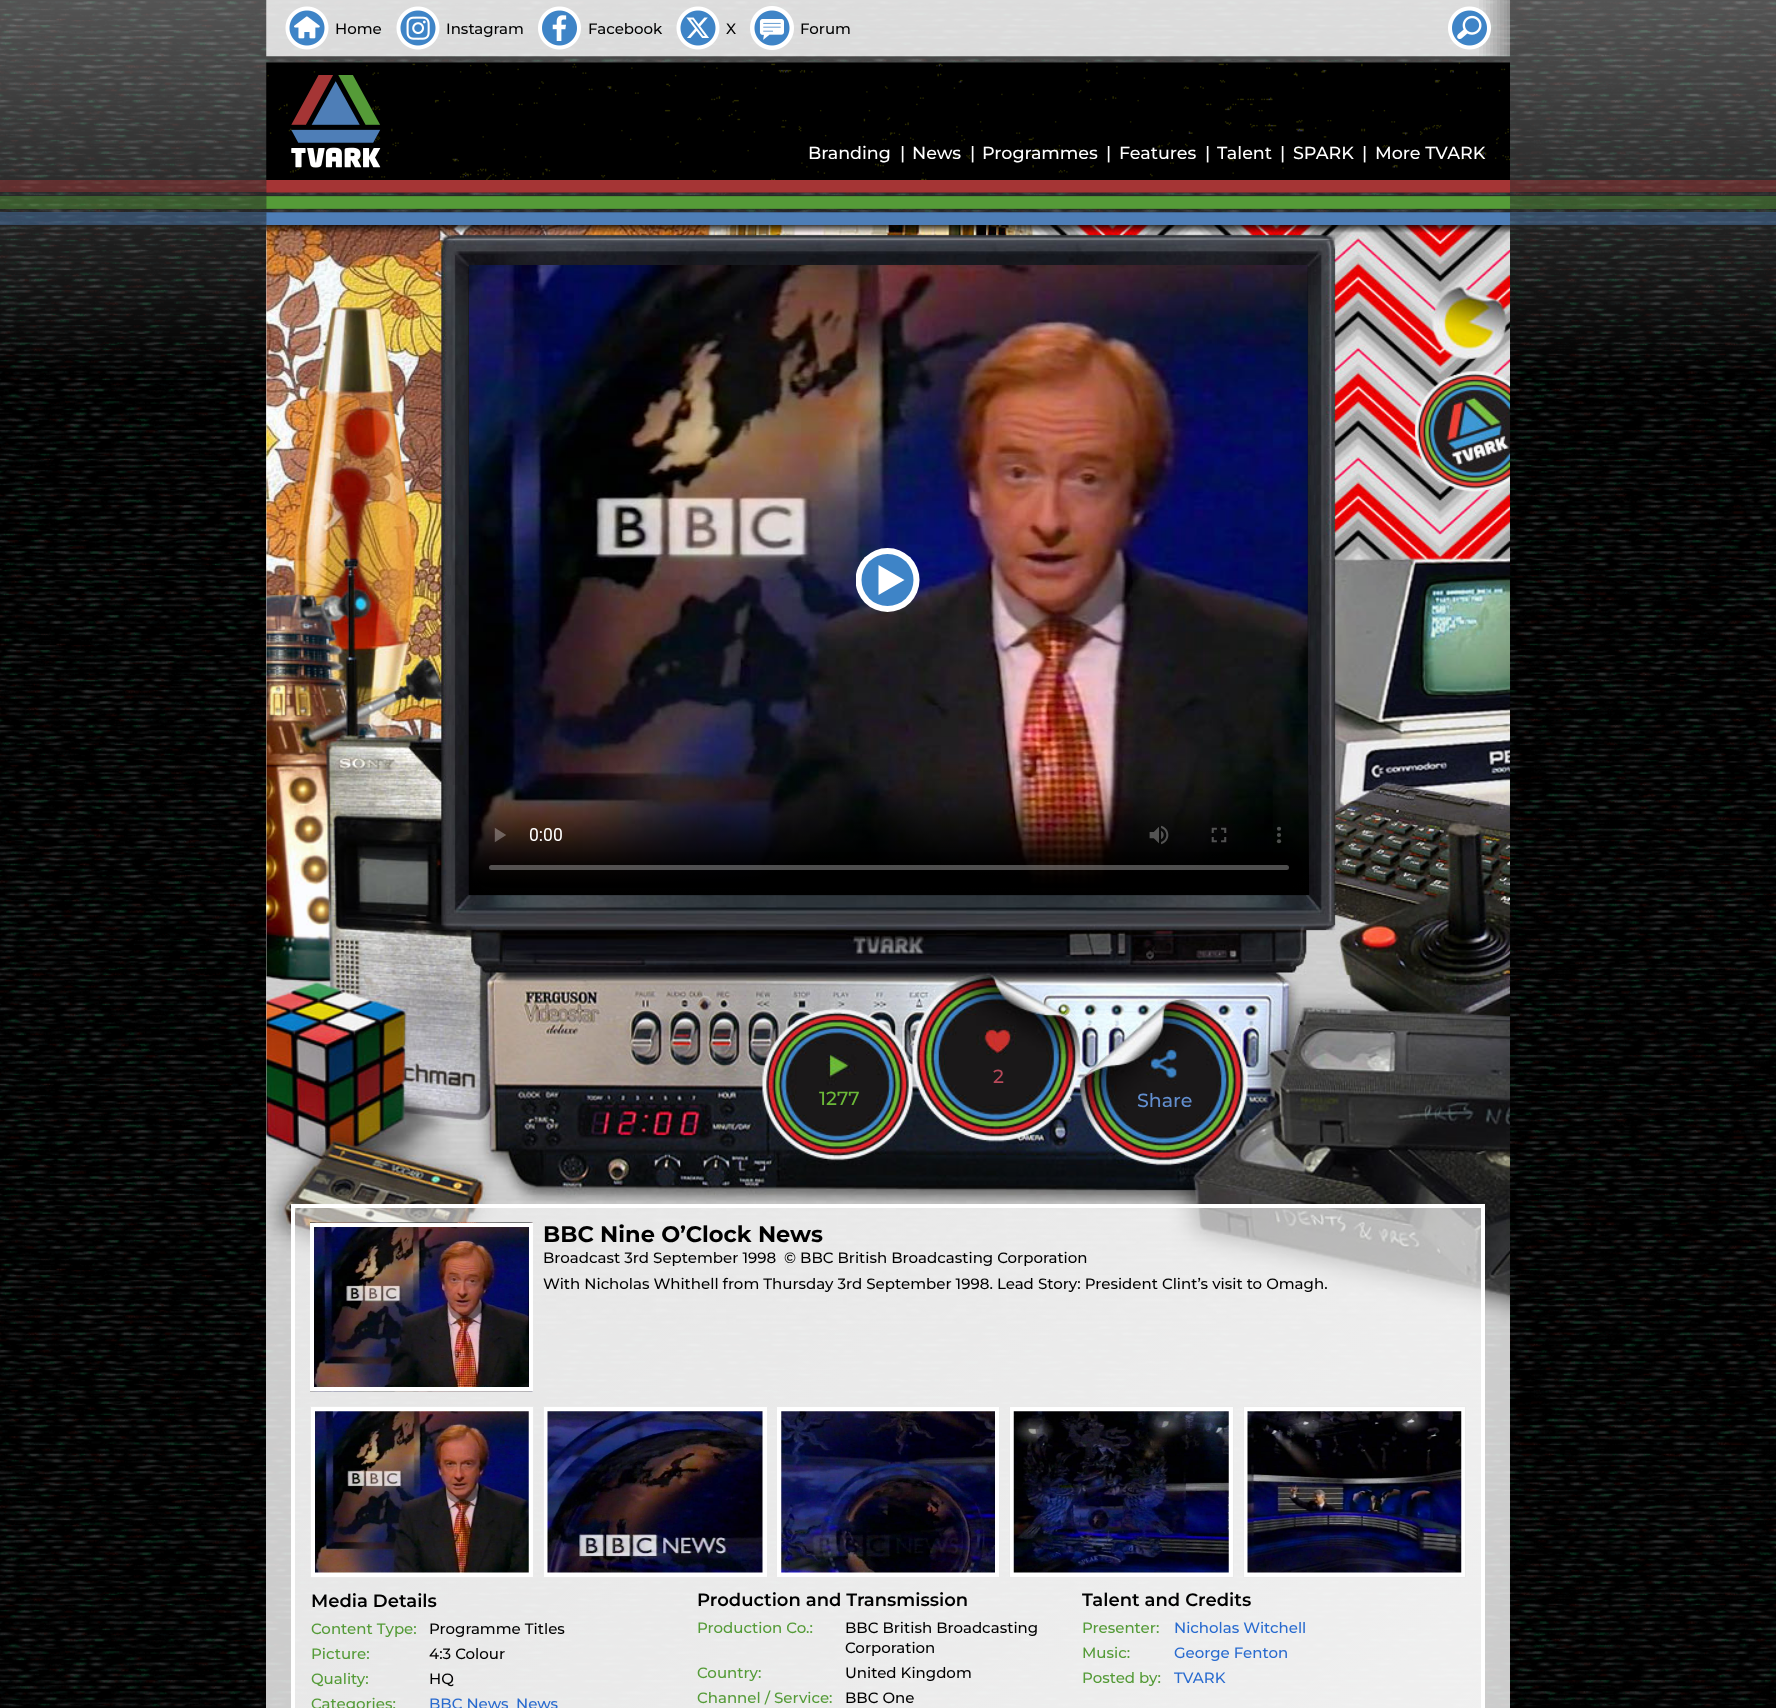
<!DOCTYPE html>
<meta charset="utf-8">
<style>body { margin: 0 } canvas { display: block }</style>
<canvas id="canvas" width="1776" height="1708"></canvas>
<img id="img1" src="img_01.png" hidden>
<img id="img2" src="img_02.png" hidden>
<img id="img3" src="img_03.png" hidden>
<img id="img4" src="img_04.png" hidden>
<img id="img5" src="img_05.png" hidden>
<img id="img6" src="img_06.png" hidden>
<img id="img7" src="img_07.png" hidden>
<img id="img8" src="img_08.png" hidden>
<img id="img9" src="img_09.png" hidden>
<img id="img10" src="img_10.png" hidden>
<img id="img11" src="img_11.png" hidden>
<img id="img12" src="img_12.png" hidden>
<img id="img13" src="img_13.png" hidden>
<img id="img14" src="img_14.png" hidden>
<img id="img15" src="img_15.png" hidden>
<img id="img16" src="img_16.png" hidden>
<img id="img17" src="img_17.png" hidden>
<img id="img18" src="img_18.png" hidden>
<img id="img19" src="img_19.png" hidden>
<script>
window.onload = function () {
	const canvas = document.getElementById("canvas");
	const ctx = canvas.getContext("2d");
	ctx.miterLimit = 4;
	ctx.fontKerning = "normal";
	function txt(s, x, y) {
		ctx.fillText(s, x, y);
	}
	function fill(x, y, w, h) {
		ctx.fillRect(x, y, w, h);
	}
	function img(id, x, y, w, h) {
		ctx.drawImage(document.getElementById(id), x, y, w, h);
	}
	let gradient;

	ctx.fillStyle = "#FFFFFF";
	fill(0, 0, 1776, 1708);
	img("img1", 0, 0, 1776, 1708);
	ctx.fillStyle = "rgba(85, 155, 56, 0.45)";
	fill(0, 196, 1776, 13);
	ctx.fillStyle = "rgba(165, 53, 53, 0.45)";
	fill(0, 180, 1776, 12);
	ctx.fillStyle = "rgba(78, 126, 183, 0.45)";
	fill(0, 212, 1776, 13);
	img("img2", 266, 180, 1244, 45);
	img("img3", 266, 0, 1244, 57);
	img("img4", 285, 6, 44, 44);
	img("img5", 396, 6, 44, 44);
	img("img6", 538, 6, 43, 44);
	img("img7", 676, 6, 44, 44);
	img("img8", 750, 6, 44, 44);
	img("img9", 1448, 6, 43, 44);
	img("img10", 266, 62, 1244, 118);
	img("img11", 291, 75, 90, 93);
	ctx.fillStyle = "rgba(255, 255, 255, 0.8)";
	fill(266, 225, 1244, 1483);
	img("img12", 266, 225, 1244, 1099);
	gradient = ctx.createLinearGradient(888, 225, 888, 233);
	gradient.addColorStop(0, "rgba(0, 0, 0, 0.75)");
	gradient.addColorStop(1, "rgba(0, 0, 0, 0)");
	ctx.fillStyle = gradient;
	fill(266, 225, 1244, 8);
	gradient = ctx.createLinearGradient(461, 1042, 1315, 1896);
	gradient.addColorStop(0, "rgba(255, 255, 255, 0.5)");
	gradient.addColorStop(1, "rgba(255, 255, 255, 0.7)");
	ctx.fillStyle = gradient;
	fill(295, 1208, 1186, 500);
	ctx.strokeStyle = "#FFFFFF";
	ctx.lineWidth = 4;
	ctx.strokeRect(293, 1206, 1190, 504);
	img("img13", 469, 265, 840, 630);
	ctx.save();
	ctx.beginPath();
	ctx.rect(856, 548, 65, 65);
	ctx.clip();
	ctx.fillStyle = "#FFFFFF";
	ctx.beginPath();
	ctx.arc(887.5, 580, 32, 0, Math.PI * 2);
	ctx.fill();
	ctx.restore();
	ctx.fillStyle = "#3E84C7";
	ctx.beginPath();
	ctx.arc(887.5, 580, 26, 0, Math.PI * 2);
	ctx.fill();
	ctx.fillStyle = "#FFFFFF";
	ctx.beginPath();
	ctx.moveTo(878.5, 595);
	ctx.lineTo(904.5, 580);
	ctx.lineTo(878.5, 565);
	ctx.closePath();
	ctx.fill();
	img("img14", 310, 1222, 223, 170);
	ctx.strokeRect(312, 1225, 219, 164);
	ctx.beginPath();
	ctx.rect(310.5, 1406.5, 223, 171);
	ctx.fill();
	ctx.strokeStyle = "#EAEAEA";
	ctx.lineWidth = 1;
	ctx.stroke();
	img("img15", 315, 1411, 214, 162);
	ctx.beginPath();
	ctx.rect(543.5, 1406.5, 224, 171);
	ctx.fill();
	ctx.stroke();
	img("img16", 547, 1411, 216, 162);
	ctx.beginPath();
	ctx.rect(776.5, 1406.5, 223, 171);
	ctx.fill();
	ctx.stroke();
	img("img17", 781, 1411, 214, 162);
	ctx.beginPath();
	ctx.rect(1009.5, 1406.5, 224, 171);
	ctx.fill();
	ctx.stroke();
	img("img18", 1013, 1411, 216, 162);
	ctx.beginPath();
	ctx.rect(1243.5, 1406.5, 222, 171);
	ctx.fill();
	ctx.stroke();
	img("img19", 1247, 1411, 215, 162);
	ctx.font = "500 15px Montserrat";
	ctx.fillStyle = "#000000";
	txt("Home", 335, 34);
	txt("Instagram", 446, 34);
	txt("Facebook", 588, 34);
	txt("X", 726, 34);
	txt("Forum", 800, 34);
	ctx.font = "500 17.5px Montserrat";
	ctx.fillStyle = "#FFFFFF";
	txt("Branding", 808, 159);
	txt("|", 900, 159);
	txt("News", 912, 159);
	txt("|", 970, 159);
	txt("Programmes", 982, 159);
	txt("|", 1106, 159);
	txt("Features", 1119, 159);
	txt("|", 1205, 159);
	txt("Talent", 1217, 159);
	txt("|", 1280, 159);
	txt("SPARK", 1293, 159);
	txt("|", 1362, 159);
	txt("More TVARK", 1375, 159);
	ctx.font = "500 19px Montserrat";
	ctx.fillStyle = "#B8495A";
	txt("2", 993, 1083);
	ctx.fillStyle = "#6CB938";
	txt("1277", 819, 1105);
	ctx.fillStyle = "#628ECF";
	txt("Share", 1137, 1107);
	ctx.font = "bold 22.5px Montserrat";
	ctx.fillStyle = "#000000";
	txt("BBC Nine O’Clock News", 543, 1242);
	ctx.font = "500 15px Montserrat";
	txt("Broadcast 3rd September 1998", 543, 1263);
	txt("© BBC British Broadcasting Corporation", 784, 1263);
	txt("With Nicholas Whithell from Thursday 3rd September 1998. Lead Story: President Clint’s visit to Omagh.", 543, 1289);
	ctx.font = "600 18px Montserrat";
	txt("Media Details", 311, 1607);
	ctx.font = "500 15px Montserrat";
	ctx.fillStyle = "#559B38";
	txt("Content Type:", 311, 1634);
	ctx.fillStyle = "#000000";
	txt("Programme Titles", 429, 1634);
	ctx.fillStyle = "#559B38";
	txt("Picture:", 311, 1659);
	ctx.fillStyle = "#000000";
	txt("4:3 Colour", 429, 1659);
	ctx.fillStyle = "#559B38";
	txt("Quality:", 311, 1684);
	ctx.fillStyle = "#000000";
	txt("HQ", 429, 1684);
	ctx.fillStyle = "#559B38";
	txt("Categories:", 311, 1709);
	ctx.fillStyle = "#296BCF";
	txt("BBC News", 429, 1709);
	txt("News", 516, 1709);
	ctx.font = "600 18px Montserrat";
	ctx.fillStyle = "#000000";
	txt("Production and Transmission", 697, 1606);
	ctx.font = "500 15px Montserrat";
	ctx.fillStyle = "#559B38";
	txt("Production Co.:", 697, 1633);
	ctx.fillStyle = "#000000";
	txt("BBC British Broadcasting", 845, 1633);
	txt("Corporation", 845, 1653);
	ctx.fillStyle = "#559B38";
	txt("Country:", 697, 1678);
	ctx.fillStyle = "#000000";
	txt("United Kingdom", 845, 1678);
	ctx.fillStyle = "#559B38";
	txt("Channel / Service:", 697, 1703);
	ctx.fillStyle = "#000000";
	txt("BBC One", 845, 1703);
	ctx.font = "600 18px Montserrat";
	txt("Talent and Credits", 1082, 1606);
	ctx.font = "500 15px Montserrat";
	ctx.fillStyle = "#559B38";
	txt("Presenter:", 1082, 1633);
	ctx.fillStyle = "#296BCF";
	txt("Nicholas Witchell", 1174, 1633);
	ctx.fillStyle = "#559B38";
	txt("Music:", 1082, 1658);
	ctx.fillStyle = "#296BCF";
	txt("George Fenton", 1174, 1658);
	ctx.fillStyle = "#559B38";
	txt("Posted by:", 1082, 1683);
	ctx.fillStyle = "#296BCF";
	txt("TVARK", 1174, 1683);
};
</script>
